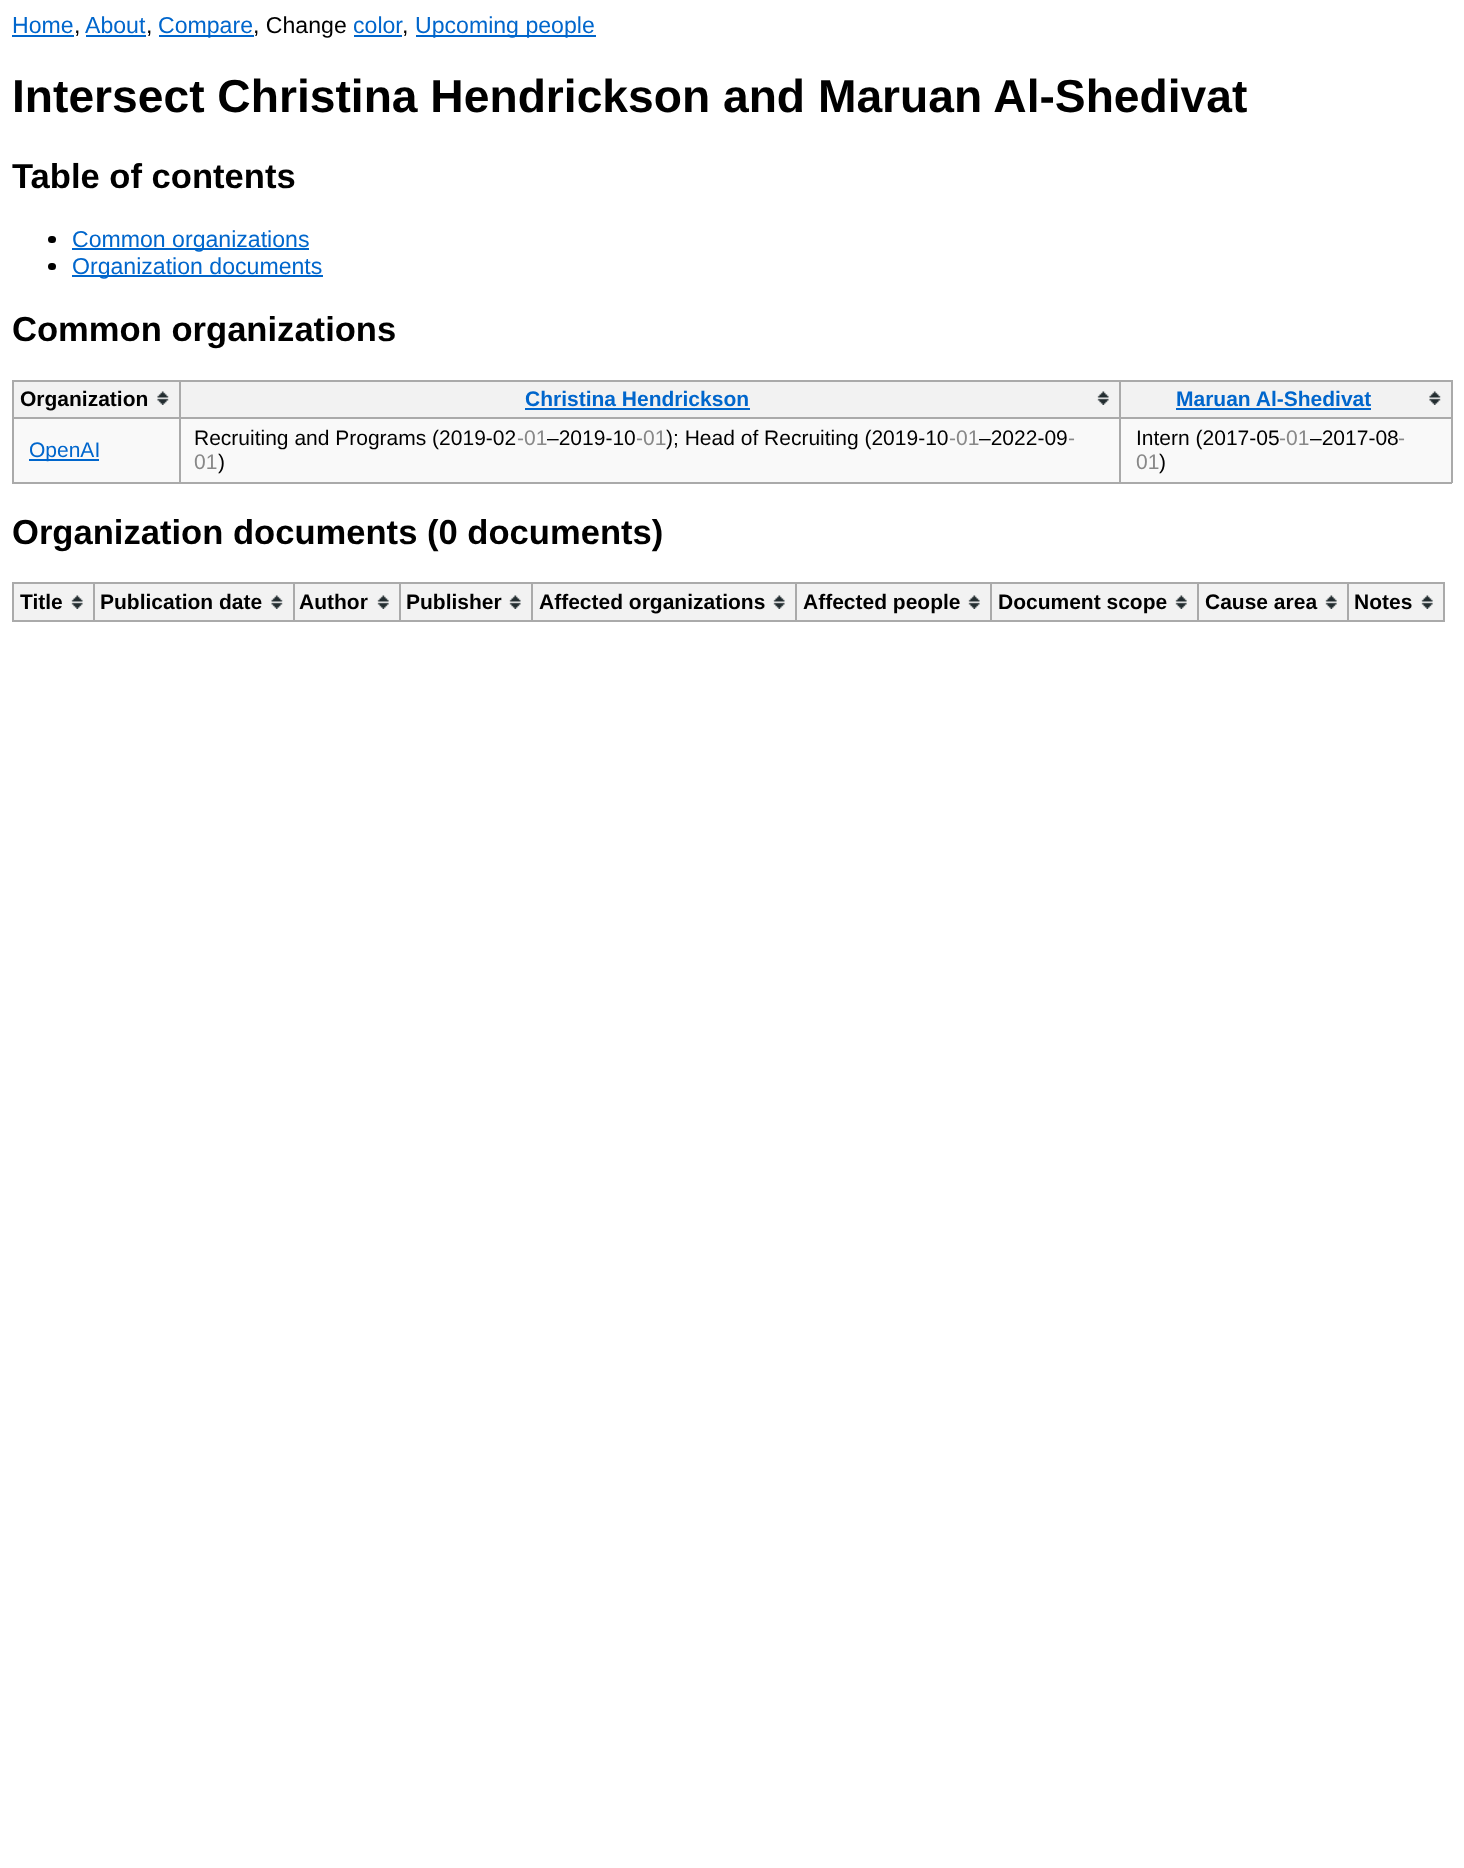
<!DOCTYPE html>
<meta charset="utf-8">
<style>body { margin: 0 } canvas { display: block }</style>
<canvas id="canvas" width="1464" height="1868"></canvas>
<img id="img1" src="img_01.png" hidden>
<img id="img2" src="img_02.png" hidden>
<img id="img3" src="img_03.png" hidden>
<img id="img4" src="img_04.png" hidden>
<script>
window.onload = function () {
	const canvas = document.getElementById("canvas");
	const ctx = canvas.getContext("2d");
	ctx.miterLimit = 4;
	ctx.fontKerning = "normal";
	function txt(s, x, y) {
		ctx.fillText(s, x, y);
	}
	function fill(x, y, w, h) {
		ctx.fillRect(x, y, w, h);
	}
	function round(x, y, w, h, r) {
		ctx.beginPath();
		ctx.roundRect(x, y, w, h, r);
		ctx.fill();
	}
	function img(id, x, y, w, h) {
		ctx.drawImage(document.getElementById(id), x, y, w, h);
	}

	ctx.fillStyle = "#FFFFFF";
	fill(0, 0, 1464, 1868);
	ctx.fillStyle = "#0066CC";
	fill(12, 35, 62, 2);
	fill(86, 35, 60, 2);
	fill(159, 35, 95, 2);
	fill(354, 35, 48, 2);
	fill(416, 35, 180, 2);
	ctx.fillStyle = "#000000";
	round(48, 236, 8, 7, 3.5);
	ctx.fillStyle = "#0066CC";
	fill(72, 248, 237, 2);
	ctx.fillStyle = "#000000";
	round(48, 263, 8, 7, 3.5);
	ctx.fillStyle = "#0066CC";
	fill(72, 275, 251, 2);
	ctx.fillStyle = "#F9F9F9";
	fill(14, 419, 1437, 63);
	ctx.fillStyle = "#F2F2F2";
	fill(14, 382, 165, 35);
	img("img1", 157, 391, 12, 14);
	ctx.fillStyle = "#AAAAAA";
	fill(1119, 380, 333, 2);
	fill(1119, 417, 333, 2);
	fill(1451, 417, 2, 66);
	fill(1119, 482, 333, 2);
	fill(1119, 417, 2, 66);
	fill(179, 417, 942, 2);
	fill(1119, 380, 2, 39);
	fill(179, 380, 942, 2);
	fill(179, 482, 942, 2);
	fill(179, 417, 2, 66);
	fill(12, 417, 168, 2);
	fill(179, 380, 2, 39);
	fill(12, 380, 168, 2);
	fill(12, 482, 168, 2);
	fill(12, 417, 2, 66);
	fill(12, 380, 2, 39);
	ctx.fillStyle = "#F2F2F2";
	fill(181, 382, 938, 35);
	img("img2", 1097, 391, 12, 14);
	ctx.fillStyle = "#0066CC";
	fill(525, 408, 225, 2);
	ctx.fillStyle = "#F2F2F2";
	fill(1121, 382, 330, 35);
	img("img1", 1429, 391, 12, 14);
	ctx.fillStyle = "#AAAAAA";
	fill(1451, 380, 2, 39);
	ctx.fillStyle = "#0066CC";
	fill(1176, 408, 195, 2);
	fill(29, 459, 70, 2);
	ctx.fillStyle = "#F2F2F2";
	fill(14, 584, 79, 36);
	img("img2", 71, 595, 12, 14);
	ctx.fillStyle = "#AAAAAA";
	fill(1347, 582, 98, 2);
	fill(1443, 582, 2, 39);
	fill(1347, 620, 98, 2);
	fill(1347, 582, 2, 39);
	fill(1197, 582, 152, 2);
	fill(1197, 620, 152, 2);
	fill(1197, 582, 2, 39);
	fill(990, 582, 209, 2);
	fill(990, 620, 209, 2);
	fill(990, 582, 2, 39);
	fill(795, 582, 197, 2);
	fill(795, 620, 197, 2);
	fill(795, 582, 2, 39);
	fill(531, 582, 266, 2);
	fill(531, 620, 266, 2);
	fill(531, 582, 2, 39);
	fill(399, 582, 134, 2);
	fill(399, 620, 134, 2);
	fill(399, 582, 2, 39);
	fill(293, 582, 108, 2);
	fill(293, 620, 108, 2);
	fill(293, 582, 2, 39);
	fill(93, 582, 201, 2);
	fill(93, 620, 201, 2);
	fill(93, 582, 2, 39);
	fill(12, 582, 83, 2);
	fill(12, 620, 83, 2);
	fill(12, 582, 2, 39);
	ctx.fillStyle = "#F2F2F2";
	fill(95, 584, 198, 36);
	img("img3", 271, 595, 12, 14);
	fill(295, 584, 104, 36);
	img("img4", 377, 595, 12, 14);
	fill(401, 584, 130, 36);
	img("img2", 509, 595, 12, 14);
	fill(533, 584, 262, 36);
	img("img2", 773, 595, 12, 14);
	fill(797, 584, 193, 36);
	img("img2", 968, 595, 12, 14);
	fill(992, 584, 205, 36);
	img("img4", 1175, 595, 12, 14);
	fill(1199, 584, 148, 36);
	img("img4", 1325, 595, 12, 14);
	fill(1349, 584, 94, 36);
	img("img4", 1421, 595, 12, 14);
	ctx.font = "23.1px Liberation Sans";
	ctx.fillStyle = "#0066CC";
	txt("Home", 12, 33);
	ctx.fillStyle = "#000000";
	txt(",", 74, 33);
	ctx.fillStyle = "#0066CC";
	txt("About", 85, 33);
	ctx.fillStyle = "#000000";
	txt(",", 146, 33);
	ctx.fillStyle = "#0066CC";
	txt("Compare", 158, 33);
	ctx.fillStyle = "#000000";
	txt(", Change", 253, 33);
	ctx.fillStyle = "#0066CC";
	txt("color", 353, 33);
	ctx.fillStyle = "#000000";
	txt(",", 402, 33);
	ctx.fillStyle = "#0066CC";
	txt("Upcoming people", 415, 33);
	ctx.font = "bold 46.2px Liberation Sans";
	ctx.fillStyle = "#000000";
	txt("Intersect Christina Hendrickson and Maruan Al-Shedivat", 12, 112);
	ctx.font = "bold 34.6px Liberation Sans";
	txt("Table of contents", 12, 188);
	ctx.font = "23.1px Liberation Sans";
	ctx.fillStyle = "#0066CC";
	txt("Common organizations", 72, 247);
	txt("Organization documents", 72, 274);
	ctx.font = "bold 34.6px Liberation Sans";
	ctx.fillStyle = "#000000";
	txt("Common organizations", 12, 341);
	ctx.font = "bold 21px Liberation Sans";
	txt("Organization", 20, 406);
	ctx.fillStyle = "#0066CC";
	txt("Christina Hendrickson", 525, 406);
	txt("Maruan Al-Shedivat", 1176, 406);
	ctx.font = "21px Liberation Sans";
	txt("OpenAI", 29, 457);
	ctx.fillStyle = "#000000";
	txt("Recruiting and Programs (2019-02", 194, 445);
	ctx.fillStyle = "#888888";
	txt("-01", 517, 445);
	ctx.fillStyle = "#000000";
	txt("–2019-10", 547, 445);
	ctx.fillStyle = "#888888";
	txt("-01", 636, 445);
	ctx.fillStyle = "#000000";
	txt("); Head of Recruiting (2019-10", 666, 445);
	ctx.fillStyle = "#888888";
	txt("-01", 949, 445);
	ctx.fillStyle = "#000000";
	txt("–2022-09", 979, 445);
	ctx.fillStyle = "#888888";
	txt("-", 1068, 445);
	txt("01", 194, 469);
	ctx.fillStyle = "#000000";
	txt(")", 218, 469);
	txt("Intern (2017-05", 1136, 445);
	ctx.fillStyle = "#888888";
	txt("-01", 1279, 445);
	ctx.fillStyle = "#000000";
	txt("–2017-08", 1310, 445);
	ctx.fillStyle = "#888888";
	txt("-", 1398, 445);
	txt("01", 1136, 469);
	ctx.fillStyle = "#000000";
	txt(")", 1159, 469);
	ctx.font = "bold 34.6px Liberation Sans";
	txt("Organization documents (0 documents)", 12, 544);
	ctx.font = "bold 21px Liberation Sans";
	txt("Title", 20, 609);
	txt("Publication date", 100, 609);
	txt("Author", 299, 609);
	txt("Publisher", 406, 609);
	txt("Affected organizations", 539, 609);
	txt("Affected people", 803, 609);
	txt("Document scope", 998, 609);
	txt("Cause area", 1205, 609);
	txt("Notes", 1354, 609);
};
</script>
